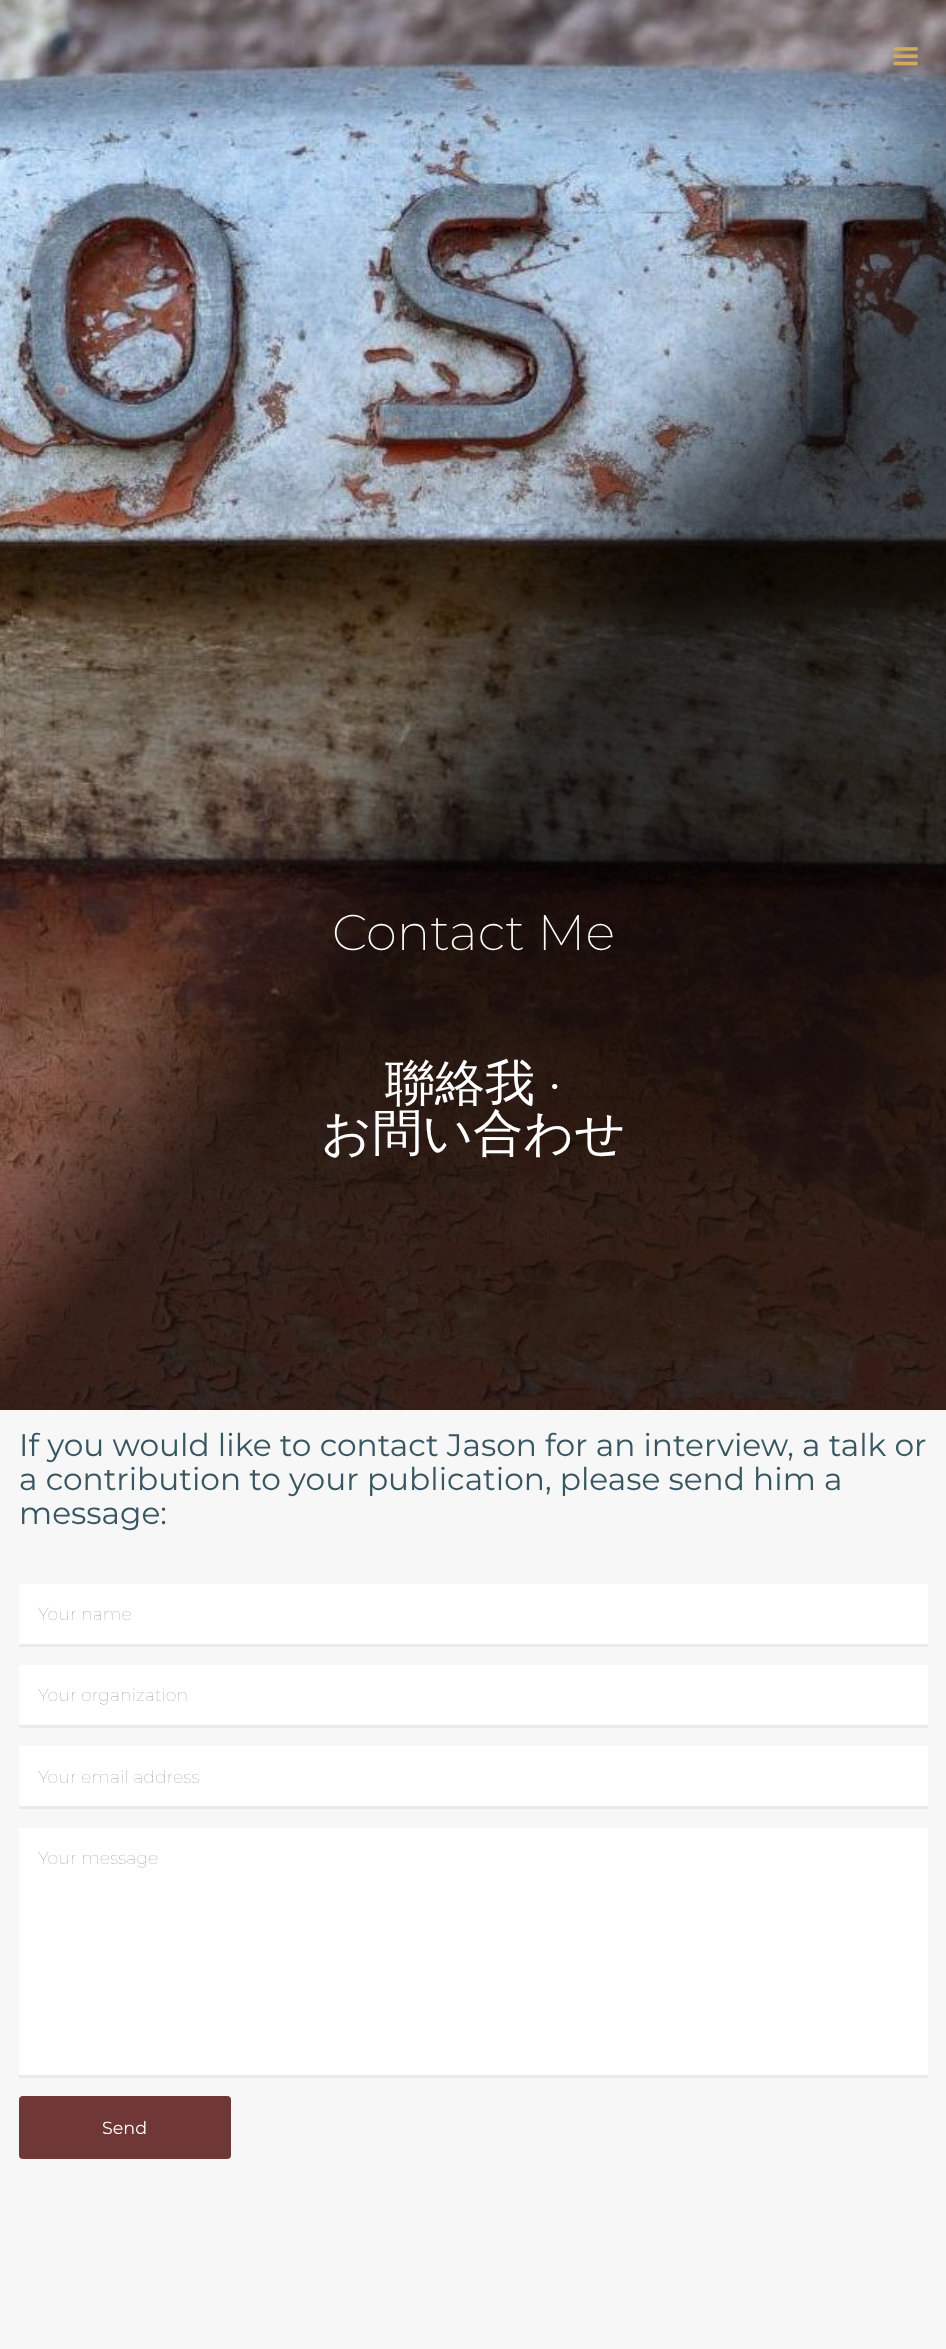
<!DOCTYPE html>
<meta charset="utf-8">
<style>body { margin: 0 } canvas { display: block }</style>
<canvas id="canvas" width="946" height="2349"></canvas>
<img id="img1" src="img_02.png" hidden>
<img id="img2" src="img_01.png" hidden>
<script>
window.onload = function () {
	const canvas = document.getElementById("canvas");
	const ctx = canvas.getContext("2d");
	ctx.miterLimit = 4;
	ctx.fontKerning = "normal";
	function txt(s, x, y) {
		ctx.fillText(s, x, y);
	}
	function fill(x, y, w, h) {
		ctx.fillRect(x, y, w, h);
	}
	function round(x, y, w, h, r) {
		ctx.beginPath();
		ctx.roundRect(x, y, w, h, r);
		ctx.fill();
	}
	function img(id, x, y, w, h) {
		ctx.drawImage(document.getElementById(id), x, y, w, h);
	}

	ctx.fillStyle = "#F7F7F7";
	fill(0, 0, 946, 2349);
	img("img1", 0, 0, 946, 1410);
	img("img2", 893, 47, 25, 19);
	ctx.fillStyle = "#FFFFFF";
	fill(19, 1584, 909, 60);
	ctx.fillStyle = "#EBEBEB";
	fill(19, 1644, 909, 3);
	ctx.fillStyle = "#FFFFFF";
	fill(19, 1665, 909, 60);
	ctx.fillStyle = "#EBEBEB";
	fill(19, 1725, 909, 3);
	ctx.fillStyle = "#FFFFFF";
	fill(19, 1746, 909, 60);
	ctx.fillStyle = "#EBEBEB";
	fill(19, 1806, 909, 3);
	ctx.fillStyle = "#FFFFFF";
	fill(19, 1828, 909, 247);
	ctx.fillStyle = "#EBEBEB";
	fill(19, 2075, 909, 3);
	ctx.fillStyle = "#6F3736";
	round(19, 2096, 212, 63, 4);
	ctx.font = "200 50px Montserrat";
	ctx.fillStyle = "#FFFFFF";
	txt("Contact Me", 332, 950);
	ctx.font = "500 50px WenQuanYi Zen Hei";
	txt("聯絡我", 385, 1100);
	ctx.font = "200 50px Montserrat";
	txt("•", 548, 1100);
	ctx.font = "500 50px WenQuanYi Zen Hei";
	txt("お問い合わせ", 321, 1150);
	ctx.font = "31.25px Montserrat";
	ctx.fillStyle = "#375660";
	txt("If you would like to contact Jason for an interview, a talk or", 19, 1456);
	txt("a contribution to your publication, please send him a", 19, 1490);
	txt("message:", 19, 1524);
	ctx.font = "100 17.5px Montserrat";
	ctx.fillStyle = "#999999";
	txt("Your name", 38, 1620);
	txt("Your organization", 38, 1701);
	txt("Your email address", 38, 1783);
	txt("Your message", 38, 1864);
	ctx.font = "17.5px Montserrat";
	ctx.fillStyle = "#FFFFFF";
	txt("Send", 102, 2134);
};
</script>
